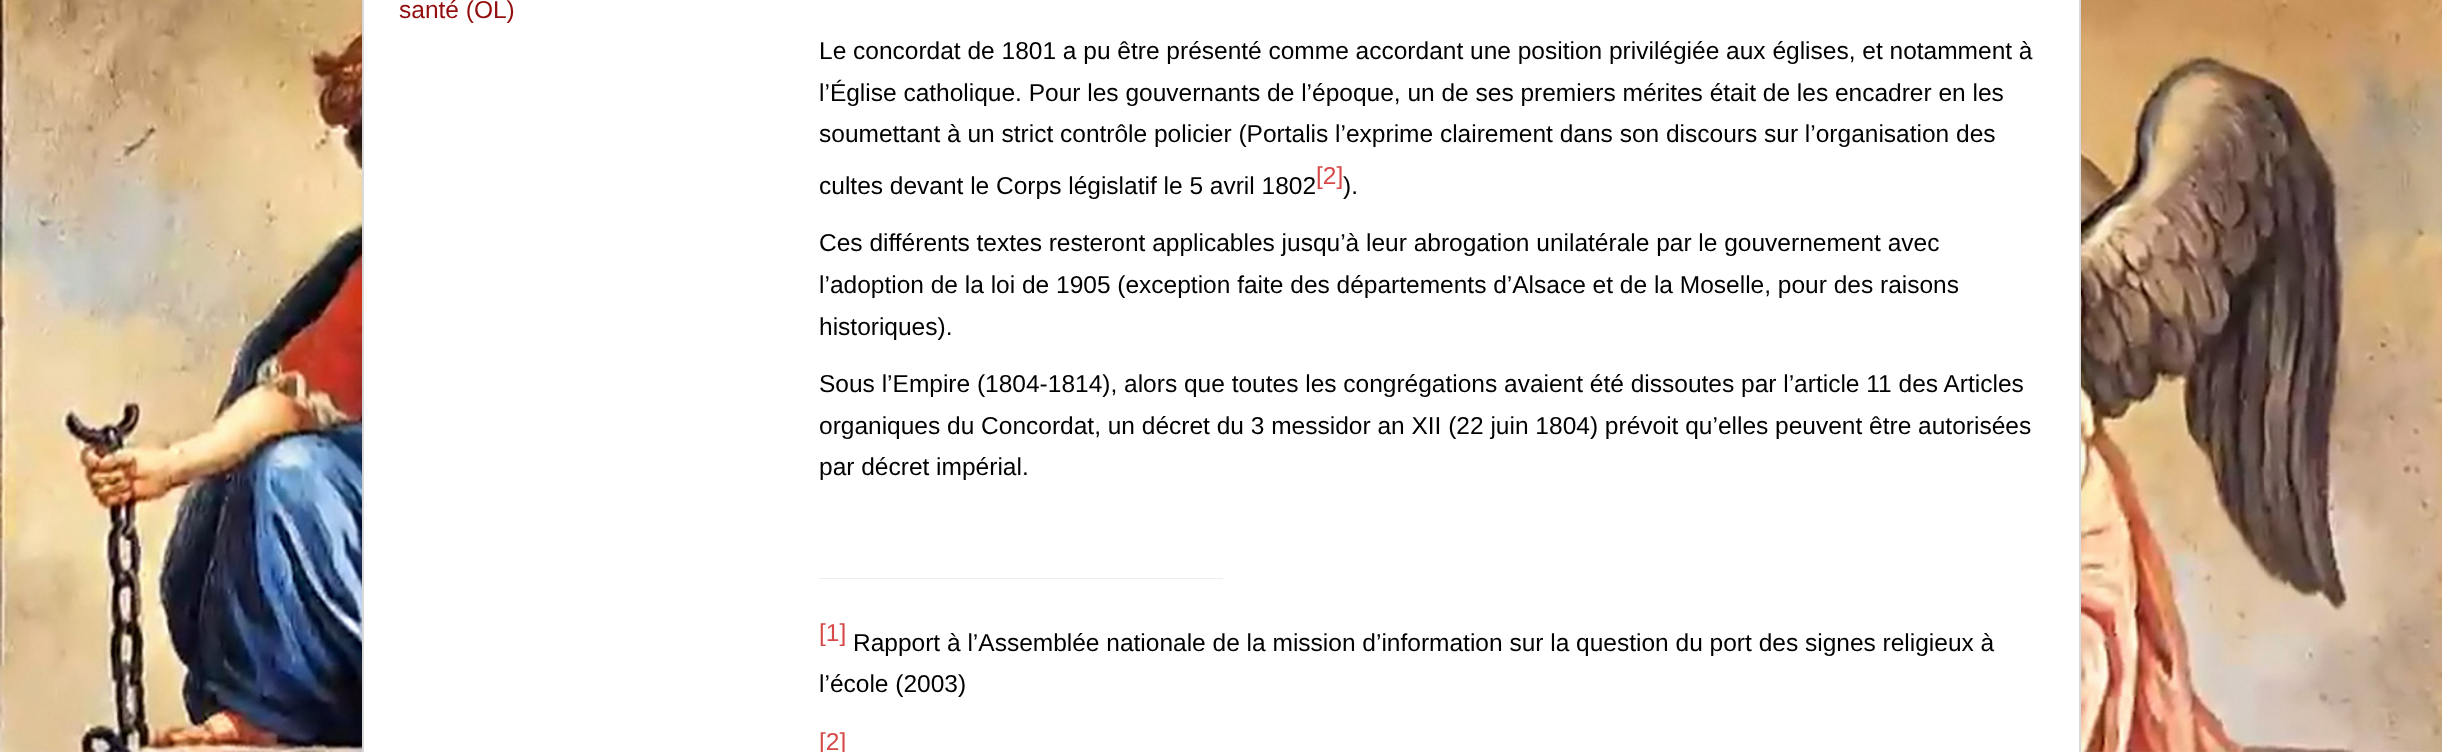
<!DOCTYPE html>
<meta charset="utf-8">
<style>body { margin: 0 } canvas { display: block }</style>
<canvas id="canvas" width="2442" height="752"></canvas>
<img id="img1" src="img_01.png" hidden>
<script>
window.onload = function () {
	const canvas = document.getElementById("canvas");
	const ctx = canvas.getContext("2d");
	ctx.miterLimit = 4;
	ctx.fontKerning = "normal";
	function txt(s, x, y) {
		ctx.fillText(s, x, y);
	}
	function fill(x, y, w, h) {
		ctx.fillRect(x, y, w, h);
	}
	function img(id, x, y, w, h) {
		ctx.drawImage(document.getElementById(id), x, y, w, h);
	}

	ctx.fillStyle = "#FFFFFF";
	fill(0, 0, 2442, 752);
	img("img1", 0, 0, 2442, 752);
	ctx.fillStyle = "rgba(0, 0, 0, 0.05)";
	ctx.filter = "blur(5px)";
	ctx.beginPath();
	ctx.roundRect(362, -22, 1719, 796, 7);
	ctx.fill();
	ctx.filter = "none";
	ctx.fillStyle = "#FFFFFF";
	ctx.beginPath();
	ctx.rect(363, -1, 1717, 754);
	ctx.fill();
	ctx.strokeStyle = "#D9D9D9";
	ctx.lineWidth = 2;
	ctx.stroke();
	ctx.fillStyle = "#EEEEEE";
	fill(819, 578, 404, 1);
	ctx.font = "24.5px Liberation Sans";
	ctx.fillStyle = "#930F0F";
	txt("santé (OL)", 399, 18);
	ctx.fillStyle = "#000000";
	txt("Le concordat de 1801 a pu être présenté comme accordant une position privilégiée aux églises, et notamment à", 819, 59);
	txt("l’Église catholique. Pour les gouvernants de l’époque, un de ses premiers mérites était de les encadrer en les", 819, 101);
	txt("soumettant à un strict contrôle policier (Portalis l’exprime clairement dans son discours sur l’organisation des", 819, 142);
	txt("cultes devant le Corps législatif le 5 avril 1802", 819, 194);
	ctx.fillStyle = "#D64A4A";
	txt("[2]", 1316, 184);
	ctx.fillStyle = "#000000";
	txt(").", 1343, 194);
	txt("Ces différents textes resteront applicables jusqu’à leur abrogation unilatérale par le gouvernement avec", 819, 251);
	txt("l’adoption de la loi de 1905 (exception faite des départements d’Alsace et de la Moselle, pour des raisons", 819, 293);
	txt("historiques).", 819, 335);
	txt("Sous l’Empire (1804-1814), alors que toutes les congrégations avaient été dissoutes par l’article 11 des Articles", 819, 392);
	txt("organiques du Concordat, un décret du 3 messidor an XII (22 juin 1804) prévoit qu’elles peuvent être autorisées", 819, 434);
	txt("par décret impérial.", 819, 475);
	ctx.fillStyle = "#D64A4A";
	txt("[1]", 819, 641);
	ctx.fillStyle = "#000000";
	txt("Rapport à l’Assemblée nationale de la mission d’information sur la question du port des signes religieux à", 853, 651);
	txt("l’école (2003)", 819, 692);
	ctx.fillStyle = "#D64A4A";
	txt("[2]", 819, 750);
};
</script>
